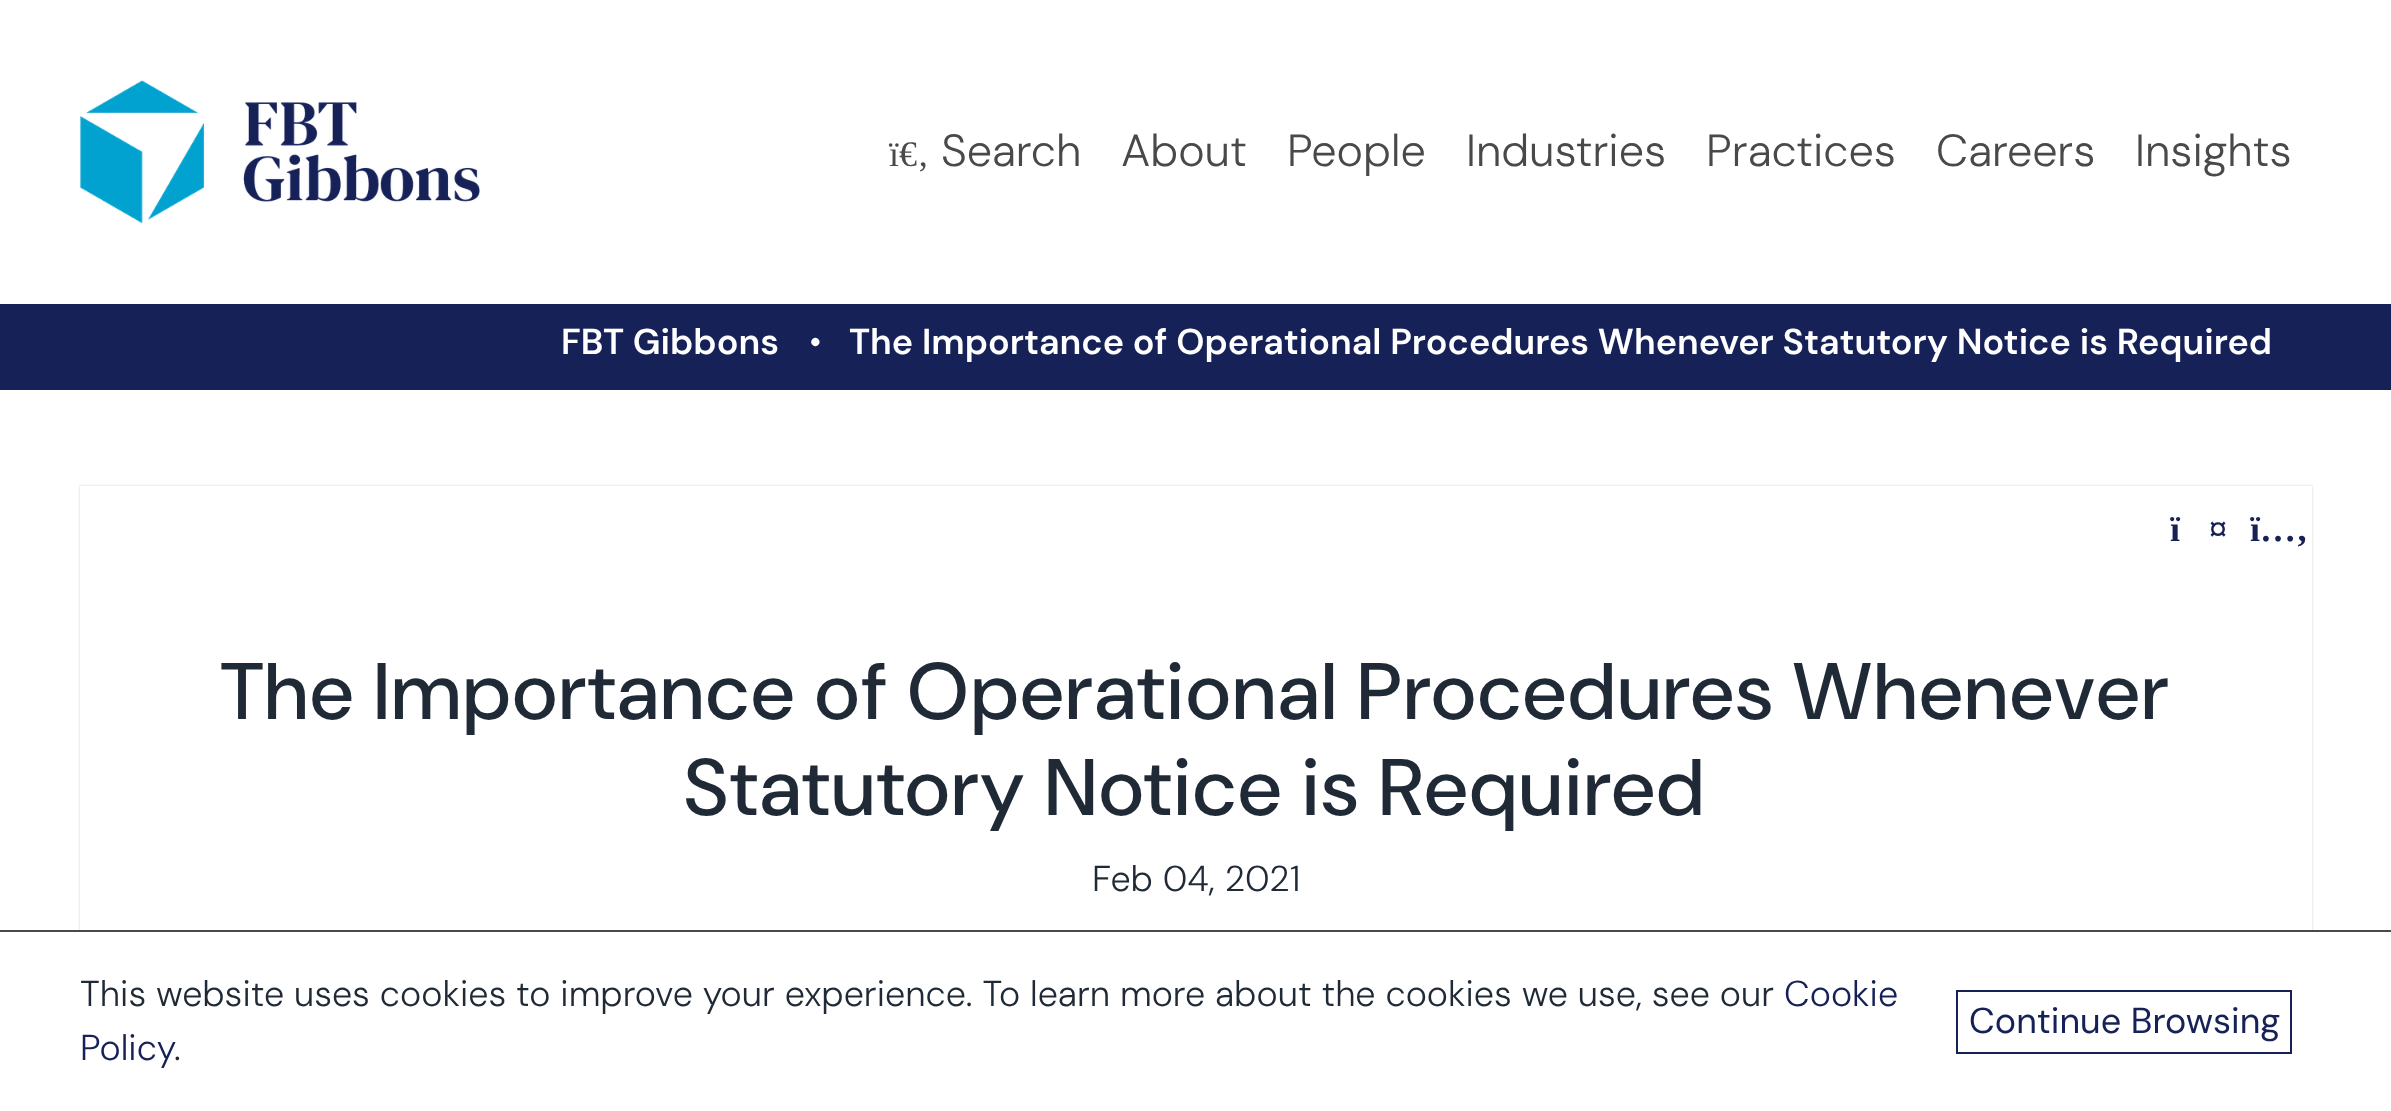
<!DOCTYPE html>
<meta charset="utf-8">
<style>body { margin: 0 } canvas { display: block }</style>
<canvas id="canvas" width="2391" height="1111"></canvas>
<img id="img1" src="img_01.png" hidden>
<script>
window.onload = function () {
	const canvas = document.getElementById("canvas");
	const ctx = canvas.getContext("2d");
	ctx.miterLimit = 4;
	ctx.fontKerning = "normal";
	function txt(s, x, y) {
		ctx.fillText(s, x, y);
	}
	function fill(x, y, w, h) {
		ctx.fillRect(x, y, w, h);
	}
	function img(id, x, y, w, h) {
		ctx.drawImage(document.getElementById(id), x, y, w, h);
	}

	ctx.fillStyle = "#FFFFFF";
	fill(0, 0, 2391, 1111);
	img("img1", 80, 80, 400, 144);
	ctx.fillStyle = "#162158";
	fill(0, 304, 2391, 86);
	ctx.save();
	ctx.beginPath();
	ctx.moveTo(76, 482);
	ctx.lineTo(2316, 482);
	ctx.lineTo(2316, 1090);
	ctx.lineTo(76, 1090);
	ctx.closePath();
	ctx.moveTo(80, 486);
	ctx.lineTo(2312, 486);
	ctx.lineTo(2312, 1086);
	ctx.lineTo(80, 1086);
	ctx.closePath();
	ctx.clip("evenodd");
	ctx.fillStyle = "rgba(153, 153, 153, 0.5)";
	ctx.filter = "blur(1px)";
	ctx.beginPath();
	ctx.rect(80, 486, 2232, 600);
	ctx.fill();
	ctx.filter = "none";
	ctx.restore();
	ctx.fillStyle = "#FFFFFF";
	fill(78, 932, 2236, 156);
	ctx.fillStyle = "#494949";
	fill(0, 930, 2391, 2);
	ctx.strokeStyle = "#162158";
	ctx.lineWidth = 2;
	ctx.strokeRect(1957, 991, 334, 62);
	ctx.font = "36px Liberation Serif";
	txt("ï€‚", 889, 166);
	ctx.font = "300 45px 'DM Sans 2'";
	txt("Search", 941, 166);
	txt("About", 1121, 166);
	txt("People", 1287, 166);
	txt("Industries", 1466, 166);
	txt("Practices", 1706, 166);
	txt("Careers", 1936, 166);
	txt("Insights", 2135, 166);
	ctx.font = "600 36px DM Sans";
	ctx.fillStyle = "#FFFFFF";
	txt("FBT Gibbons", 561, 354);
	ctx.font = "300 36px DM Sans";
	txt("•", 809, 354);
	ctx.font = "600 36px DM Sans";
	txt("The Importance of Operational Procedures Whenever Statutory Notice is Required", 849, 354);
	ctx.font = "bold 36px Liberation Serif";
	ctx.fillStyle = "#162158";
	txt("ï", 2170, 541);
	txt("¤", 2209, 541);
	txt("ï…‚", 2250, 541);
	ctx.letterSpacing = "2.5px";
	ctx.font = "500 80px DM Sans";
	ctx.fillStyle = "#1F2A36";
	txt("The Importance of Operational Procedures Whenever", 221, 719);
	txt("Statutory Notice is Required", 684, 815);
	ctx.letterSpacing = "0px";
	ctx.font = "300 36px DM Sans";
	txt("Feb 04, 2021", 1092, 891);
	txt("This website uses cookies to improve your experience. To learn more about the cookies we use, see our", 80, 1006);
	ctx.fillStyle = "#162158";
	txt("Cookie", 1784, 1006);
	txt("Policy", 80, 1060);
	ctx.fillStyle = "#1F2A36";
	txt(".", 174, 1060);
	ctx.font = "36px DM Sans";
	ctx.fillStyle = "#162158";
	txt("Continue Browsing", 1969, 1033);
};
</script>
